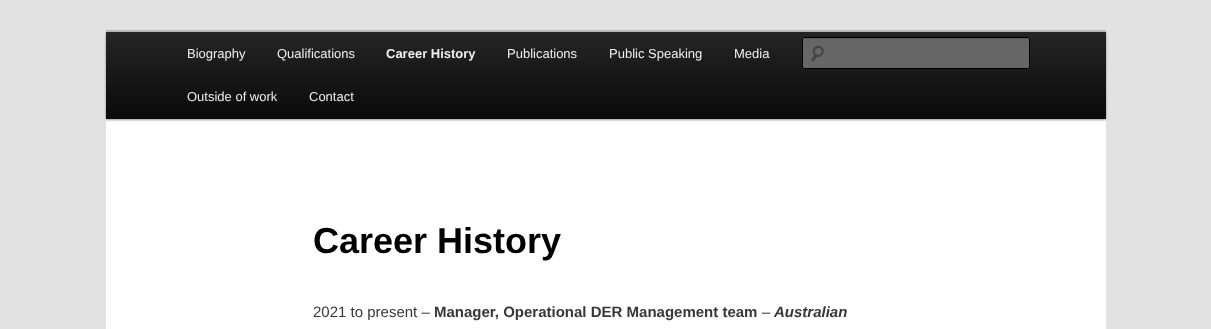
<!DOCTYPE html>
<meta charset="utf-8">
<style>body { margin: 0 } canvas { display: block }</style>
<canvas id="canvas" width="1211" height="329"></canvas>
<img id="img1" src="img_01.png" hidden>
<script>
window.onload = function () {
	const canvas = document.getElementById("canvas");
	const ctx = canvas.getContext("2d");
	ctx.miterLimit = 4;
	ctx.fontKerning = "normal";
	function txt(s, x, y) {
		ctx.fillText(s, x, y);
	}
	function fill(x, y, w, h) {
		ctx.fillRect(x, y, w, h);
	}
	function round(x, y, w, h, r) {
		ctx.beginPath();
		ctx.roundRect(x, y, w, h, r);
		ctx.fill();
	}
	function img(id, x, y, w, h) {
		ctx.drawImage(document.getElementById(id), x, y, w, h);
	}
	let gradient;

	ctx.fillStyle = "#E2E2E2";
	fill(0, 0, 1211, 329);
	ctx.fillStyle = "#FFFFFF";
	fill(106, 119, 1000, 210);
	ctx.fillStyle = "#BBBBBB";
	fill(106, 30, 1000, 2);
	ctx.fillStyle = "rgba(0, 0, 0, 0.4)";
	ctx.filter = "blur(1px)";
	ctx.beginPath();
	ctx.rect(106, 33, 1000, 87);
	ctx.fill();
	ctx.filter = "none";
	gradient = ctx.createLinearGradient(606, 32, 606, 119);
	gradient.addColorStop(0, "#252525");
	gradient.addColorStop(1, "#0A0A0A");
	ctx.fillStyle = gradient;
	fill(106, 32, 1000, 87);
	ctx.fillStyle = "#666666";
	round(802, 37, 228, 32, 2);
	img("img1", 811, 45, 13, 17);
	ctx.fillStyle = "#5C5C5C";
	ctx.beginPath();
	ctx.moveTo(804, 39);
	ctx.lineTo(1029, 39);
	ctx.lineTo(1029, 40);
	ctx.lineTo(1029, 38);
	ctx.lineTo(804, 38);
	ctx.bezierCurveTo(803, 38, 803, 39, 803, 40);
	ctx.bezierCurveTo(803, 39, 803, 39, 804, 39);
	ctx.closePath();
	ctx.fill();
	ctx.beginPath();
	ctx.roundRect(802.5, 37.5, 227, 31, 1.5);
	ctx.strokeStyle = "#000000";
	ctx.stroke();
	ctx.font = "13px Liberation Sans";
	ctx.fillStyle = "#EEEEEE";
	txt("Biography", 187, 58);
	txt("Qualifications", 277, 58);
	ctx.font = "bold 13px Liberation Sans";
	txt("Career History", 386, 58);
	ctx.font = "13px Liberation Sans";
	txt("Publications", 507, 58);
	txt("Public Speaking", 609, 58);
	txt("Media", 734, 58);
	txt("Outside of work", 187, 101);
	txt("Contact", 309, 101);
	ctx.font = "bold 36px Liberation Sans";
	ctx.fillStyle = "#000000";
	txt("Career History", 313, 253);
	ctx.font = "15px Liberation Sans";
	ctx.fillStyle = "#373737";
	txt("2021 to present –", 313, 317);
	ctx.font = "bold 15px Liberation Sans";
	txt("Manager, Operational DER Management team", 434, 317);
	ctx.font = "15px Liberation Sans";
	txt("–", 762, 317);
	ctx.font = "italic bold 15px Liberation Sans";
	txt("Australian", 774, 317);
};
</script>
